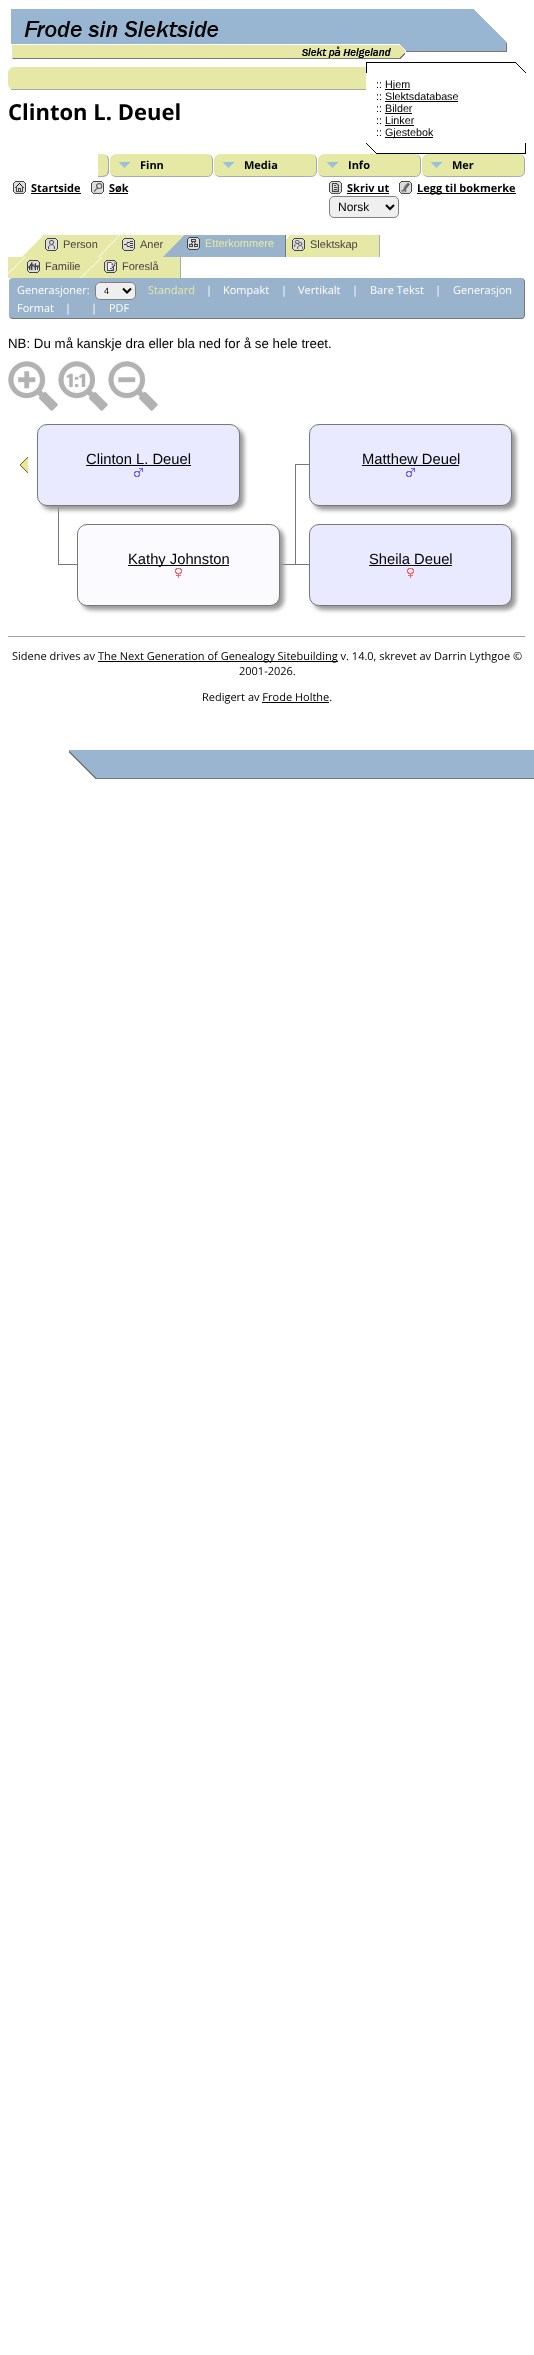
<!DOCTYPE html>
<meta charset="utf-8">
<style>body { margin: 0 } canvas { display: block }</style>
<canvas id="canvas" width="534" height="2355"></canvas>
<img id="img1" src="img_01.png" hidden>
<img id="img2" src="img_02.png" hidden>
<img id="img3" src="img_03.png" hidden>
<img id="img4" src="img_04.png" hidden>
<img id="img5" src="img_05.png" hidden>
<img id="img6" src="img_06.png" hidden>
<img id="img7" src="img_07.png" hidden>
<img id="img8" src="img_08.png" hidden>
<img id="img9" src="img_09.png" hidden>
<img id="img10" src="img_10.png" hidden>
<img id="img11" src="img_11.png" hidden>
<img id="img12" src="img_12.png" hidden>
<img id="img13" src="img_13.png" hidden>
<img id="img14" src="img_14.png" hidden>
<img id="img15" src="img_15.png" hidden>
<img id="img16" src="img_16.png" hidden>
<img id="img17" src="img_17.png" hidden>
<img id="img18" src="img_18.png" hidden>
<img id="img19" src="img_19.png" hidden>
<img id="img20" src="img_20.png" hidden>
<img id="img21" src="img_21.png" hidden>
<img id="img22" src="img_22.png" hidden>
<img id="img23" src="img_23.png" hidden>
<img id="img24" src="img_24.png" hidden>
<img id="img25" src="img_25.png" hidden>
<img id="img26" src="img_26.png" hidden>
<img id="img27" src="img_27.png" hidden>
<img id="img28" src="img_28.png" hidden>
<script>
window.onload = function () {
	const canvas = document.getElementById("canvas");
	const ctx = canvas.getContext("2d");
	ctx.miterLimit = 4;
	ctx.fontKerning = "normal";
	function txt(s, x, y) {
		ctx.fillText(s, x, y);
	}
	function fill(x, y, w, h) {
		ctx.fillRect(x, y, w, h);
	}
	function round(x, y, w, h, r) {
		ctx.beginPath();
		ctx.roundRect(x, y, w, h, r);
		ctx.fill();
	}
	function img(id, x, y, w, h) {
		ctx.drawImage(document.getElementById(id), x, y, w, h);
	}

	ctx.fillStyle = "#FFFFFF";
	fill(0, 0, 534, 2355);
	img("img1", 11, 9, 497, 50);
	ctx.fillStyle = "#E5E9A5";
	round(8, 67, 518, 23, 6);
	img("img2", 366, 62, 160, 11);
	ctx.fillStyle = "#FFFFFF";
	fill(366, 73, 160, 17);
	ctx.fillStyle = "#000000";
	fill(385, 89, 25, 1);
	fill(385, 101, 73, 1);
	fill(385, 113, 27, 1);
	fill(385, 125, 29, 1);
	fill(385, 137, 48, 1);
	img("img3", 366, 143, 160, 11);
	ctx.fillStyle = "#AAAAAA";
	fill(11, 89, 355, 1);
	ctx.fillStyle = "#E5E9A5";
	ctx.beginPath();
	ctx.roundRect(98, 154, 11, 23, [0, 6, 6, 0]);
	ctx.fill();
	ctx.fillStyle = "#AAAAAA";
	ctx.beginPath();
	ctx.moveTo(98, 154);
	ctx.bezierCurveTo(102, 154, 108, 153.5, 109, 159);
	ctx.lineTo(109, 172);
	ctx.bezierCurveTo(108, 177.5, 102, 177, 98, 177);
	ctx.closePath();
	ctx.moveTo(98, 154);
	ctx.lineTo(104, 154);
	ctx.bezierCurveTo(109, 155.5, 108, 162, 108, 165.5);
	ctx.bezierCurveTo(108, 175.5, 107.5, 176, 98, 176);
	ctx.closePath();
	ctx.fill("evenodd");
	ctx.fillStyle = "#E5E9A5";
	round(110, 154, 103, 23, 6);
	img("img4", 119, 162, 11, 6);
	ctx.fillStyle = "#AAAAAA";
	ctx.beginPath();
	ctx.moveTo(116, 154);
	ctx.lineTo(207, 154);
	ctx.bezierCurveTo(210, 154, 213, 157, 213, 160);
	ctx.lineTo(213, 171);
	ctx.bezierCurveTo(213, 174, 210, 177, 207, 177);
	ctx.lineTo(116, 177);
	ctx.bezierCurveTo(113, 177, 110, 174, 110, 171);
	ctx.lineTo(110, 160);
	ctx.bezierCurveTo(110, 157, 113, 154, 116, 154);
	ctx.closePath();
	ctx.moveTo(116, 154);
	ctx.lineTo(207, 154);
	ctx.bezierCurveTo(210, 154, 212, 157, 212, 160);
	ctx.lineTo(212, 171);
	ctx.bezierCurveTo(212, 174, 210, 176, 207, 176);
	ctx.lineTo(116, 176);
	ctx.bezierCurveTo(113, 176, 110, 174, 110, 171);
	ctx.lineTo(110, 160);
	ctx.bezierCurveTo(110, 157, 113, 154, 116, 154);
	ctx.closePath();
	ctx.fill("evenodd");
	ctx.fillStyle = "#E5E9A5";
	round(214, 154, 103, 23, 6);
	img("img4", 223, 162, 11, 6);
	ctx.fillStyle = "#AAAAAA";
	ctx.beginPath();
	ctx.moveTo(220, 154);
	ctx.lineTo(311, 154);
	ctx.bezierCurveTo(314, 154, 317, 157, 317, 160);
	ctx.lineTo(317, 171);
	ctx.bezierCurveTo(317, 174, 314, 177, 311, 177);
	ctx.lineTo(220, 177);
	ctx.bezierCurveTo(217, 177, 214, 174, 214, 171);
	ctx.lineTo(214, 160);
	ctx.bezierCurveTo(214, 157, 217, 154, 220, 154);
	ctx.closePath();
	ctx.moveTo(220, 154);
	ctx.lineTo(311, 154);
	ctx.bezierCurveTo(314, 154, 316, 157, 316, 160);
	ctx.lineTo(316, 171);
	ctx.bezierCurveTo(316, 174, 314, 176, 311, 176);
	ctx.lineTo(220, 176);
	ctx.bezierCurveTo(217, 176, 214, 174, 214, 171);
	ctx.lineTo(214, 160);
	ctx.bezierCurveTo(214, 157, 217, 154, 220, 154);
	ctx.closePath();
	ctx.fill("evenodd");
	ctx.fillStyle = "#E5E9A5";
	round(318, 154, 103, 23, 6);
	img("img4", 327, 162, 11, 6);
	ctx.fillStyle = "#AAAAAA";
	ctx.beginPath();
	ctx.moveTo(324, 154);
	ctx.lineTo(415, 154);
	ctx.bezierCurveTo(418, 154, 421, 157, 421, 160);
	ctx.lineTo(421, 171);
	ctx.bezierCurveTo(421, 174, 418, 177, 415, 177);
	ctx.lineTo(324, 177);
	ctx.bezierCurveTo(321, 177, 318, 174, 318, 171);
	ctx.lineTo(318, 160);
	ctx.bezierCurveTo(318, 157, 321, 154, 324, 154);
	ctx.closePath();
	ctx.moveTo(324, 154);
	ctx.lineTo(415, 154);
	ctx.bezierCurveTo(418, 154, 420, 157, 420, 160);
	ctx.lineTo(420, 171);
	ctx.bezierCurveTo(420, 174, 418, 176, 415, 176);
	ctx.lineTo(324, 176);
	ctx.bezierCurveTo(321, 176, 318, 174, 318, 171);
	ctx.lineTo(318, 160);
	ctx.bezierCurveTo(318, 157, 321, 154, 324, 154);
	ctx.closePath();
	ctx.fill("evenodd");
	ctx.fillStyle = "#E5E9A5";
	round(422, 154, 103, 23, 6);
	img("img4", 431, 162, 11, 6);
	ctx.fillStyle = "#AAAAAA";
	ctx.beginPath();
	ctx.moveTo(428, 154);
	ctx.lineTo(519, 154);
	ctx.bezierCurveTo(522, 154, 525, 157, 525, 160);
	ctx.lineTo(525, 171);
	ctx.bezierCurveTo(525, 174, 522, 177, 519, 177);
	ctx.lineTo(428, 177);
	ctx.bezierCurveTo(425, 177, 422, 174, 422, 171);
	ctx.lineTo(422, 160);
	ctx.bezierCurveTo(422, 157, 425, 154, 428, 154);
	ctx.closePath();
	ctx.moveTo(428, 154);
	ctx.lineTo(519, 154);
	ctx.bezierCurveTo(522, 154, 524, 157, 524, 160);
	ctx.lineTo(524, 171);
	ctx.bezierCurveTo(524, 174, 522, 176, 519, 176);
	ctx.lineTo(428, 176);
	ctx.bezierCurveTo(425, 176, 422, 174, 422, 171);
	ctx.lineTo(422, 160);
	ctx.bezierCurveTo(422, 157, 425, 154, 428, 154);
	ctx.closePath();
	ctx.fill("evenodd");
	img("img5", 13, 181, 13, 15);
	ctx.fillStyle = "#000000";
	fill(31, 193, 50, 1);
	img("img6", 91, 181, 13, 15);
	fill(109, 193, 19, 1);
	img("img7", 329, 181, 13, 15);
	fill(347, 193, 42, 1);
	img("img8", 399, 181, 13, 15);
	fill(417, 193, 99, 1);
	ctx.fillStyle = "#EFEFEF";
	ctx.beginPath();
	ctx.roundRect(329.5, 196.5, 69, 21, 4.5);
	ctx.fill();
	ctx.strokeStyle = "#808080";
	ctx.stroke();
	ctx.beginPath();
	ctx.moveTo(386, 205);
	ctx.lineTo(390, 209);
	ctx.lineTo(394, 205);
	ctx.strokeStyle = "#000000";
	ctx.lineWidth = 2;
	ctx.stroke();
	img("img9", 22, 235, 97, 22);
	img("img10", 45, 238, 13, 13);
	img("img11", 98, 235, 86, 22);
	img("img12", 122, 238, 13, 13);
	img("img13", 163, 235, 122, 22);
	ctx.fillStyle = "#777777";
	fill(285, 235, 1, 22);
	img("img14", 187, 237, 13, 13);
	img("img15", 286, 235, 93, 22);
	ctx.fillStyle = "#AAAAAA";
	fill(379, 235, 1, 22);
	img("img16", 292, 238, 13, 13);
	ctx.fillStyle = "#E5E9A5";
	fill(8, 257, 16, 16);
	img("img17", 8, 257, 94, 21);
	img("img18", 27, 260, 13, 13);
	img("img19", 80, 257, 100, 21);
	ctx.fillStyle = "#AAAAAA";
	fill(180, 257, 1, 21);
	img("img20", 104, 260, 13, 13);
	ctx.fillStyle = "#99B3CC";
	round(9, 278, 516, 41, 4);
	ctx.fillStyle = "#777777";
	ctx.beginPath();
	ctx.moveTo(13, 278);
	ctx.lineTo(521, 278);
	ctx.bezierCurveTo(523, 278, 525, 280, 525, 282);
	ctx.lineTo(525, 315);
	ctx.bezierCurveTo(525, 317, 523, 319, 521, 319);
	ctx.lineTo(13, 319);
	ctx.bezierCurveTo(11, 319, 9, 317, 9, 315);
	ctx.lineTo(9, 282);
	ctx.bezierCurveTo(9, 280, 11, 278, 13, 278);
	ctx.closePath();
	ctx.moveTo(13, 278);
	ctx.lineTo(521, 278);
	ctx.bezierCurveTo(523, 278, 524, 280, 524, 282);
	ctx.lineTo(524, 315);
	ctx.bezierCurveTo(524, 317, 523, 318, 521, 318);
	ctx.lineTo(13, 318);
	ctx.bezierCurveTo(11, 318, 9, 317, 9, 315);
	ctx.lineTo(9, 282);
	ctx.bezierCurveTo(9, 280, 11, 278, 13, 278);
	ctx.closePath();
	ctx.fill("evenodd");
	ctx.fillStyle = "#EFEFEF";
	ctx.beginPath();
	ctx.roundRect(95.5, 282.5, 40, 17, 4.5);
	ctx.fill();
	ctx.strokeStyle = "#808080";
	ctx.lineWidth = 1;
	ctx.stroke();
	ctx.beginPath();
	ctx.moveTo(123, 288.5);
	ctx.lineTo(127, 292.5);
	ctx.lineTo(131, 288.5);
	ctx.strokeStyle = "#000000";
	ctx.lineWidth = 2;
	ctx.stroke();
	img("img21", 8, 361, 50, 50);
	img("img22", 58, 361, 50, 50);
	img("img23", 108, 361, 50, 50);
	img("img24", 20, 457, 8, 16);
	ctx.fillStyle = "#777777";
	fill(58, 504, 1, 60);
	ctx.fillStyle = "#999999";
	ctx.filter = "blur(2px)";
	ctx.beginPath();
	ctx.roundRect(41, 428, 203, 82, 10);
	ctx.fill();
	ctx.filter = "none";
	ctx.fillStyle = "#E9E9FF";
	ctx.beginPath();
	ctx.roundRect(37.5, 424.5, 202, 81, 9.5);
	ctx.fill();
	ctx.strokeStyle = "#777777";
	ctx.lineWidth = 1;
	ctx.stroke();
	ctx.fillStyle = "#000000";
	fill(86, 465, 105, 1);
	img("img25", 134, 468, 9, 9);
	ctx.fillStyle = "#777777";
	fill(295, 464, 17, 1);
	ctx.fillStyle = "#999999";
	ctx.filter = "blur(2px)";
	ctx.beginPath();
	ctx.roundRect(313, 428, 203, 82, 10);
	ctx.fill();
	ctx.filter = "none";
	ctx.fillStyle = "#E9E9FF";
	ctx.beginPath();
	ctx.roundRect(309.5, 424.5, 202, 81, 9.5);
	ctx.fill();
	ctx.stroke();
	ctx.fillStyle = "#000000";
	fill(362, 465, 97, 1);
	img("img25", 406, 468, 9, 9);
	ctx.fillStyle = "#777777";
	fill(58, 564, 22, 1);
	fill(279, 564, 33, 1);
	ctx.fillStyle = "#999999";
	ctx.filter = "blur(2px)";
	ctx.beginPath();
	ctx.roundRect(81, 528, 203, 82, 10);
	ctx.fill();
	ctx.filter = "none";
	ctx.fillStyle = "#FBFBFF";
	ctx.beginPath();
	ctx.roundRect(77.5, 524.5, 202, 81, 9.5);
	ctx.fill();
	ctx.stroke();
	ctx.fillStyle = "#000000";
	fill(128, 565, 101, 1);
	img("img26", 175, 568, 7, 10);
	ctx.fillStyle = "#777777";
	fill(295, 464, 1, 100);
	ctx.fillStyle = "#999999";
	ctx.filter = "blur(2px)";
	ctx.beginPath();
	ctx.roundRect(313, 528, 203, 82, 10);
	ctx.fill();
	ctx.filter = "none";
	ctx.fillStyle = "#E9E9FF";
	ctx.beginPath();
	ctx.roundRect(309.5, 524.5, 202, 81, 9.5);
	ctx.fill();
	ctx.stroke();
	ctx.fillStyle = "#000000";
	fill(369, 565, 83, 1);
	img("img27", 407, 568, 7, 10);
	ctx.fillStyle = "#9F9F9F";
	fill(8, 636, 518, 1);
	ctx.fillStyle = "#EEEEEE";
	fill(525, 636, 1, 1);
	ctx.fillStyle = "#000000";
	fill(98, 661, 240, 1);
	fill(262, 702, 67, 1);
	img("img28", 69, 750, 465, 29);
	ctx.font = "bold 22px Open Sans";
	txt("Clinton L. Deuel", 8, 120);
	ctx.font = "10.75px Liberation Sans";
	txt("::", 376, 88);
	txt("Hjem", 385, 88);
	txt(":: Slektsdatabase", 376, 100);
	txt(":: Bilder", 376, 112);
	txt(":: Linker", 376, 124);
	txt("::", 376, 136);
	txt("Gjestebok", 385, 136);
	ctx.font = "bold 11px Open Sans";
	txt("Finn", 140, 169);
	txt("Media", 244, 169);
	txt("Info", 348, 169);
	txt("Mer", 452, 169);
	txt("Startside", 31, 192);
	txt("Søk", 109, 192);
	txt("Skriv ut", 347, 192);
	txt("Legg til bokmerke", 417, 192);
	ctx.font = "12px Liberation Sans";
	txt("Norsk", 338, 211);
	ctx.font = "11px Liberation Sans";
	ctx.fillStyle = "#444444";
	txt("Person", 63, 248);
	txt("Aner", 140, 248);
	ctx.fillStyle = "#E5E9A5";
	txt("Etterkommere", 205, 247);
	ctx.fillStyle = "#444444";
	txt("Slektskap", 310, 248);
	txt("Familie", 45, 270);
	txt("Foreslå", 122, 270);
	ctx.font = "11px Open Sans";
	ctx.fillStyle = "#FFFFFF";
	txt("Generasjoner:", 17, 294);
	ctx.font = "9px Liberation Sans";
	ctx.fillStyle = "#000000";
	txt("4", 104, 294);
	ctx.font = "11px Open Sans";
	ctx.fillStyle = "#E5E9A5";
	txt("Standard", 148, 294);
	ctx.fillStyle = "#FFFFFF";
	txt("|", 206, 294);
	txt("Kompakt", 223, 294);
	txt("|", 281, 294);
	txt("Vertikalt", 298, 294);
	txt("|", 352, 294);
	txt("Bare Tekst", 370, 294);
	txt("|", 435, 294);
	txt("Generasjon", 453, 294);
	txt("Format", 17, 312);
	txt("|", 65, 312);
	txt("|", 91, 312);
	txt("PDF", 109, 312);
	ctx.font = "13.3px Liberation Sans";
	ctx.fillStyle = "#000000";
	txt("NB: Du må kanskje dra eller bla ned for å se hele treet.", 8, 348);
	ctx.font = "14.75px Liberation Sans";
	txt("Clinton L. Deuel", 86, 464);
	txt("Matthew Deuel", 362, 464);
	txt("Kathy Johnston", 128, 564);
	txt("Sheila Deuel", 369, 564);
	ctx.font = "11px Open Sans";
	txt("Sidene drives av", 12, 660);
	txt("The Next Generation of Genealogy Sitebuilding v. 14.0, skrevet av Darrin Lythgoe ©", 98, 660);
	txt("2001-2026.", 239, 675);
	txt("Redigert av Frode Holthe.", 202, 701);
};
</script>
